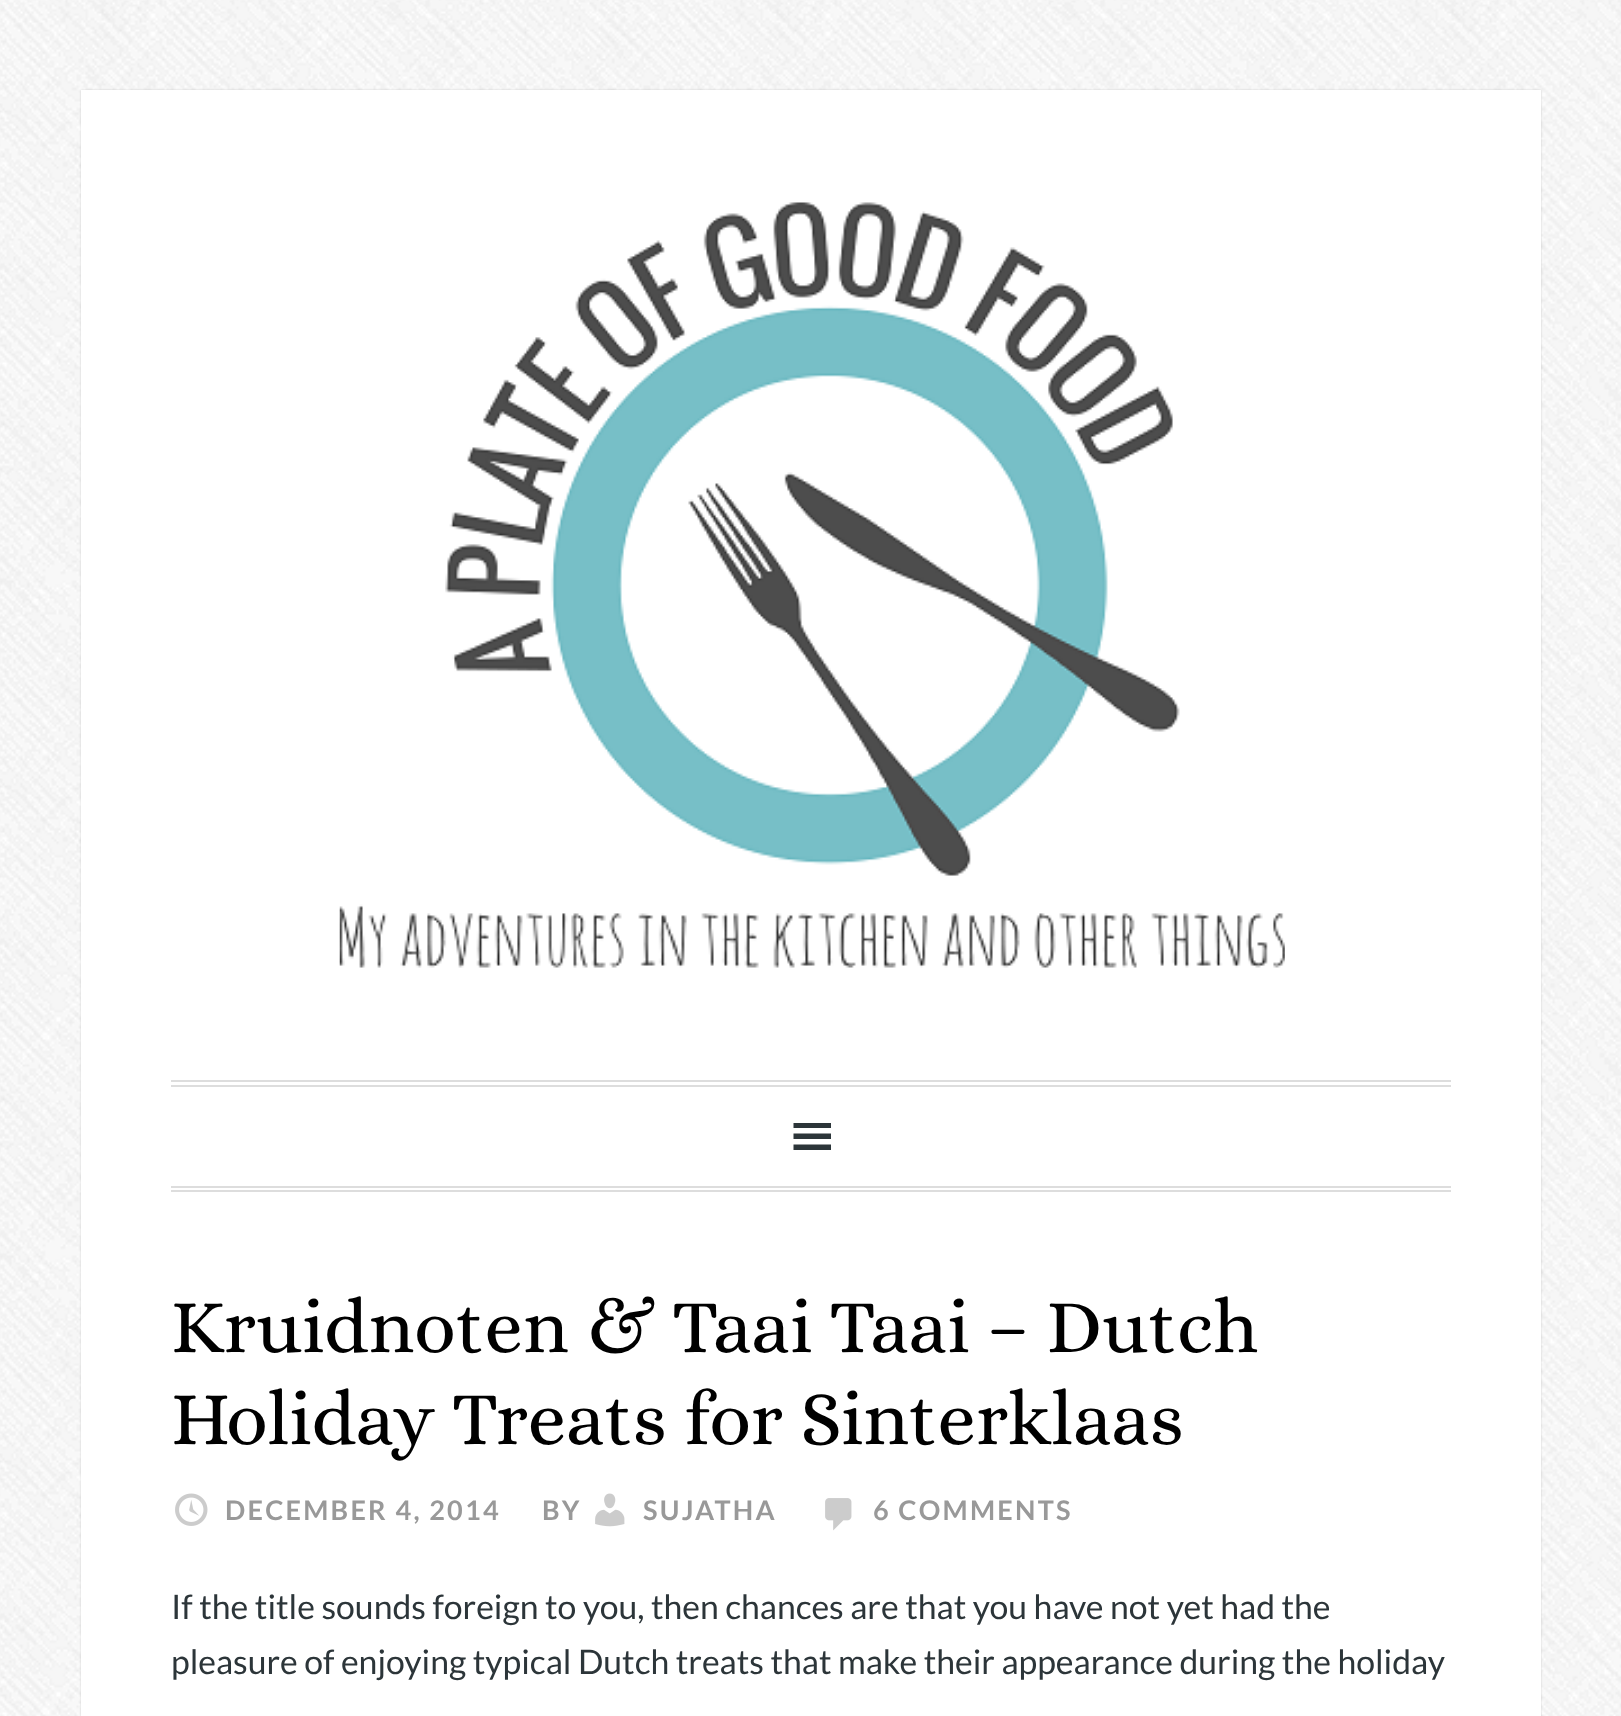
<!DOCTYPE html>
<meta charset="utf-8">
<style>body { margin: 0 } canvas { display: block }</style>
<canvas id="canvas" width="1621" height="1716"></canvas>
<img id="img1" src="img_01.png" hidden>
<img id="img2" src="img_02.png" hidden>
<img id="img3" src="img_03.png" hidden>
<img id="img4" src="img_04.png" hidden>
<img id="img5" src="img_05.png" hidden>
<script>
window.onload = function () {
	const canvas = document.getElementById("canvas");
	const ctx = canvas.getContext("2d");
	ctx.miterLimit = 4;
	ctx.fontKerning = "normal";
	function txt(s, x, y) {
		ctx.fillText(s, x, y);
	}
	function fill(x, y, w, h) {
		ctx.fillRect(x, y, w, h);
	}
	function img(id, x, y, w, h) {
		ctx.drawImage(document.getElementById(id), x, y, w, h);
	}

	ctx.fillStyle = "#FFFFFF";
	fill(0, 0, 1621, 1716);
	img("img1", 0, 0, 1621, 1716);
	ctx.fillStyle = "rgba(0, 0, 0, 0.15)";
	ctx.filter = "blur(1px)";
	ctx.beginPath();
	ctx.rect(81, 90, 1460, 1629);
	ctx.fill();
	ctx.filter = "none";
	ctx.fillStyle = "#FFFFFF";
	fill(81, 90, 1460, 1626);
	img("img2", 339, 202, 946, 766);
	ctx.fillStyle = "#DDDDDD";
	fill(171, 1080, 1280, 2);
	fill(171, 1085, 1280, 2);
	fill(171, 1186, 1280, 2);
	fill(171, 1190, 1280, 2);
	ctx.fillStyle = "#2C3539";
	ctx.beginPath();
	ctx.moveTo(793.5, 1150);
	ctx.lineTo(831, 1150);
	ctx.lineTo(831, 1144.5);
	ctx.lineTo(793.5, 1144.5);
	ctx.closePath();
	ctx.moveTo(793.5, 1123);
	ctx.lineTo(793.5, 1128);
	ctx.lineTo(831, 1128);
	ctx.lineTo(831, 1123);
	ctx.closePath();
	ctx.moveTo(793.5, 1139);
	ctx.lineTo(831, 1139);
	ctx.lineTo(831, 1133.5);
	ctx.lineTo(793.5, 1133.5);
	ctx.closePath();
	ctx.fill();
	img("img3", 175, 1493, 33, 33);
	img("img4", 595, 1493, 30, 34);
	img("img5", 825, 1498, 27, 33);
	ctx.font = "76.5px Alice";
	ctx.fillStyle = "#000000";
	txt("Kruidnoten & Taai Taai – Dutch", 171, 1352);
	txt("Holiday Treats for Sinterklaas", 171, 1444);
	ctx.letterSpacing = "2.25px";
	ctx.font = "bold 27px Lato";
	ctx.fillStyle = "#999999";
	txt("DECEMBER 4, 2014", 225, 1520);
	txt("BY", 542, 1520);
	txt("SUJATHA", 643, 1520);
	txt("6 COMMENTS", 873, 1520);
	ctx.letterSpacing = "0px";
	ctx.font = "33.75px Lato";
	ctx.fillStyle = "#2C3539";
	txt("If the title sounds foreign to you, then chances are that you have not yet had the", 171, 1619);
	txt("pleasure of enjoying typical Dutch treats that make their appearance during the holiday", 171, 1674);
};
</script>
